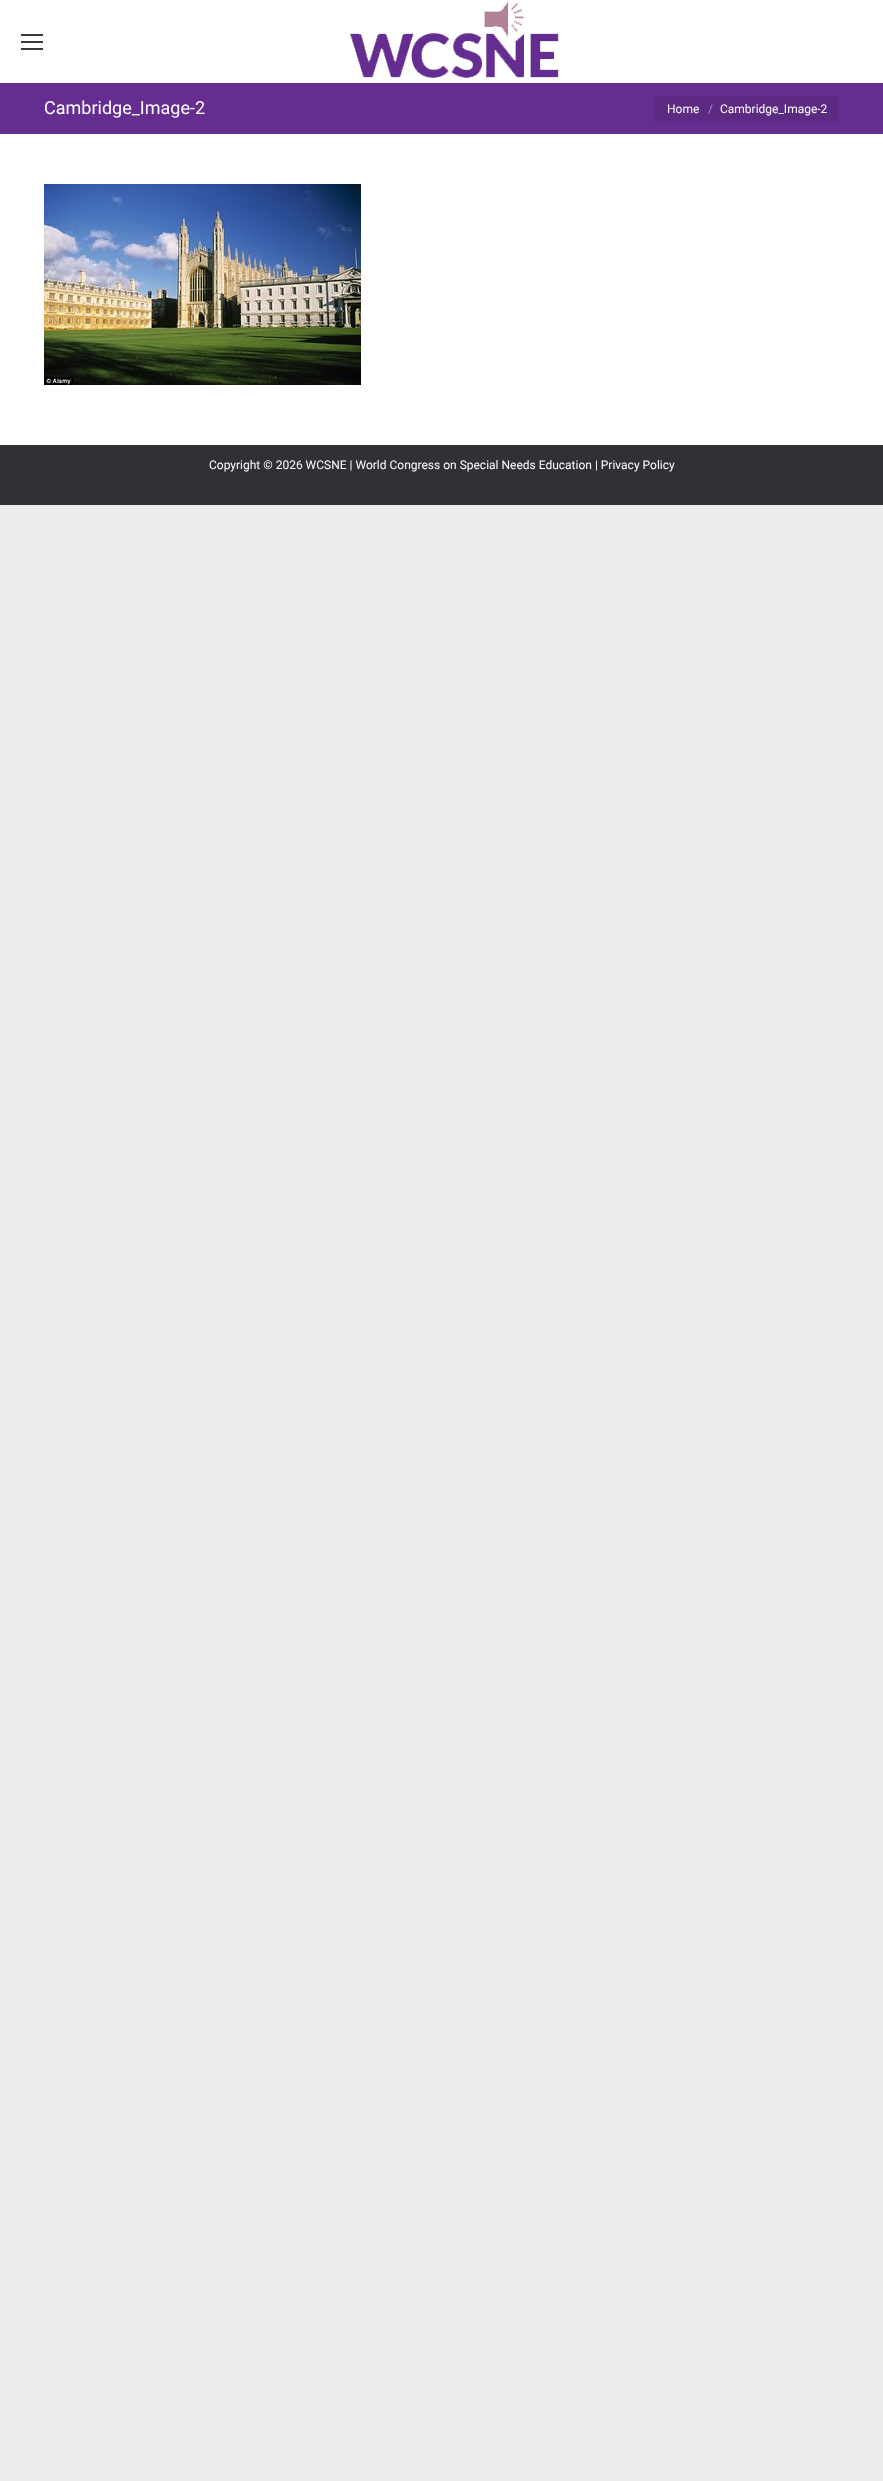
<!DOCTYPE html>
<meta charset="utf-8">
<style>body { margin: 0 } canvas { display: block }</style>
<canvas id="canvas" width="883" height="2481"></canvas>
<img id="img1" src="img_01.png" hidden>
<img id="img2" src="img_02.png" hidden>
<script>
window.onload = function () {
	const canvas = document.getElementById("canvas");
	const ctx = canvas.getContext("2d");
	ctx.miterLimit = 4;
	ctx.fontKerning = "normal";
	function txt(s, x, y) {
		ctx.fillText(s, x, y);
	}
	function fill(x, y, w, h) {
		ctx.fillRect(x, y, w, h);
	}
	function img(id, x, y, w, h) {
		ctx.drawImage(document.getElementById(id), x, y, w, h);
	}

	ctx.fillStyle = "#ECECEC";
	fill(0, 0, 883, 2481);
	ctx.fillStyle = "#FFFFFF";
	fill(0, 0, 883, 445);
	ctx.fillStyle = "#3A3A3A";
	fill(21, 41, 22, 2);
	fill(21, 34, 22, 2);
	fill(21, 48, 22, 2);
	img("img1", 350, 1, 209, 77);
	ctx.fillStyle = "#652D90";
	fill(0, 83, 883, 50);
	ctx.fillStyle = "#622E89";
	fill(0, 133, 883, 1);
	ctx.fillStyle = "#5C2A83";
	fill(655, 96, 184, 25);
	img("img2", 44, 184, 317, 201);
	ctx.fillStyle = "#303135";
	fill(0, 445, 883, 60);
	ctx.font = "18px Roboto";
	ctx.fillStyle = "#FFFFFF";
	txt("Cambridge_Image-2", 44, 114);
	ctx.font = "12px Roboto";
	txt("Home", 667, 113);
	ctx.fillStyle = "#AE95C1";
	txt("/", 708, 113);
	ctx.fillStyle = "#FFFFFF";
	txt("Cambridge_Image-2", 720, 113);
	txt("Copyright © 2026 WCSNE | World Congress on Special Needs Education | Privacy Policy", 209, 469);
};
</script>
